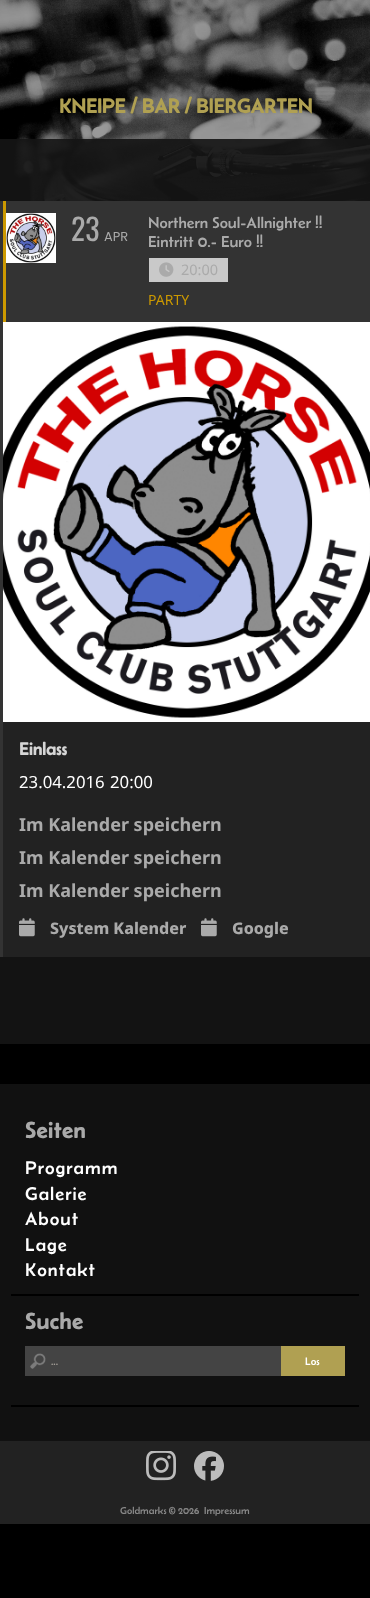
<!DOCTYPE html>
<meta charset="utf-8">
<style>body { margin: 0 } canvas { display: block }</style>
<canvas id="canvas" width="370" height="1598"></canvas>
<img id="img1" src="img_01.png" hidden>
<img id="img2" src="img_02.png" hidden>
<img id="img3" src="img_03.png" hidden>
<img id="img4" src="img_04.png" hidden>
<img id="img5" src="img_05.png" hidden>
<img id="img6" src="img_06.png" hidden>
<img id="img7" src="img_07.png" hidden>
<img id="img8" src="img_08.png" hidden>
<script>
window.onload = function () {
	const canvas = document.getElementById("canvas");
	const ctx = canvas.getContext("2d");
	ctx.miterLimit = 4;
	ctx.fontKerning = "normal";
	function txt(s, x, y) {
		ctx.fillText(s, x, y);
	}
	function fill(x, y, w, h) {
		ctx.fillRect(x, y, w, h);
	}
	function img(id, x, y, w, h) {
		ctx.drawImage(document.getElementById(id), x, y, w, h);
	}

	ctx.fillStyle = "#000000";
	fill(0, 0, 370, 1598);
	img("img1", 0, 0, 370, 201);
	ctx.fillStyle = "rgba(0, 0, 0, 0.4)";
	fill(0, 0, 370, 139);
	ctx.fillStyle = "rgba(20, 20, 20, 0.95)";
	fill(0, 139, 370, 905);
	ctx.fillStyle = "#333333";
	fill(0, 201, 3, 756);
	fill(6, 201, 364, 121);
	ctx.fillStyle = "#CC9900";
	fill(3, 201, 3, 121);
	img("img2", 6, 213, 50, 50);
	ctx.fillStyle = "#C9C9C9";
	fill(149, 258, 79, 24);
	img("img3", 159, 262, 15, 15);
	img("img4", 3, 322, 367, 400);
	ctx.fillStyle = "#222222";
	fill(3, 722, 367, 235);
	img("img5", 19, 918, 16, 19);
	img("img5", 201, 918, 16, 19);
	ctx.fillStyle = "#111111";
	fill(0, 1084, 370, 357);
	ctx.fillStyle = "#000000";
	fill(11, 1294, 348, 2);
	ctx.fillStyle = "#444444";
	fill(25, 1346, 256, 30);
	img("img6", 30, 1353, 16, 16);
	ctx.fillStyle = "#B0A052";
	fill(281, 1346, 64, 30);
	ctx.fillStyle = "#000000";
	fill(11, 1405, 348, 2);
	ctx.fillStyle = "#222222";
	fill(0, 1441, 370, 83);
	img("img7", 146, 1451, 30, 30);
	img("img8", 194, 1451, 30, 30);
	ctx.font = "bold 20.5px Belanosima";
	ctx.fillStyle = "#B0A052";
	txt("KNEIPE / BAR / BIERGARTEN", 59, 113);
	ctx.font = "30px Oswald";
	ctx.fillStyle = "#AAAAAA";
	txt("23", 71, 241);
	ctx.font = "13px Poppins";
	txt("APR", 104, 241);
	ctx.font = "16px Belanosima";
	txt("Northern Soul-Allnighter !!", 148, 228);
	txt("Eintritt 0.- Euro !!", 148, 247);
	ctx.font = "14.5px Noto Sans";
	txt("20:00", 181, 275);
	ctx.font = "14px Noto Sans";
	ctx.fillStyle = "#CC9900";
	txt("PARTY", 148, 305);
	ctx.font = "bold 18px Belanosima";
	ctx.fillStyle = "#D6D6D6";
	txt("Einlass", 19, 755);
	ctx.font = "16.75px Noto Sans";
	ctx.fillStyle = "#FFFFFF";
	txt("23.04.2016", 19, 788);
	txt("20:00", 110, 788);
	ctx.font = "bold 18px Noto Sans";
	ctx.fillStyle = "#AAAAAA";
	txt("Im Kalender speichern", 19, 831);
	txt("Im Kalender speichern", 19, 864);
	txt("Im Kalender speichern", 19, 897);
	ctx.font = "800 16px Noto Sans";
	txt("System Kalender", 50, 934);
	txt("Google", 232, 934);
	ctx.letterSpacing = "0.5px";
	ctx.font = "bold 23px Belanosima";
	txt("Seiten", 25, 1138);
	ctx.letterSpacing = "1px";
	ctx.font = "18.75px Belanosima";
	ctx.fillStyle = "#FFFFFF";
	txt("Programm", 25, 1174);
	txt("Galerie", 25, 1200);
	txt("About", 25, 1225);
	txt("Lage", 25, 1251);
	txt("Kontakt", 25, 1276);
	ctx.letterSpacing = "0.5px";
	ctx.font = "bold 23px Belanosima";
	ctx.fillStyle = "#AAAAAA";
	txt("Suche", 25, 1329);
	ctx.letterSpacing = "0px";
	ctx.font = "11px Belanosima";
	ctx.fillStyle = "#A5A099";
	txt("...", 51, 1365);
	ctx.fillStyle = "#FFFFFF";
	txt("Los", 305, 1365);
	ctx.font = "10.25px Belanosima";
	ctx.fillStyle = "#888888";
	txt("Goldmarks © 2026", 120, 1514);
	txt("Impressum", 204, 1514);
};
</script>
